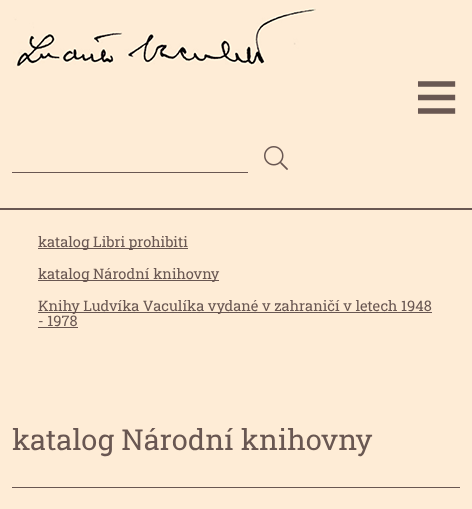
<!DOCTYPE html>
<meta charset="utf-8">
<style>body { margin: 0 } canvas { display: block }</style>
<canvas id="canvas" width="472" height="509"></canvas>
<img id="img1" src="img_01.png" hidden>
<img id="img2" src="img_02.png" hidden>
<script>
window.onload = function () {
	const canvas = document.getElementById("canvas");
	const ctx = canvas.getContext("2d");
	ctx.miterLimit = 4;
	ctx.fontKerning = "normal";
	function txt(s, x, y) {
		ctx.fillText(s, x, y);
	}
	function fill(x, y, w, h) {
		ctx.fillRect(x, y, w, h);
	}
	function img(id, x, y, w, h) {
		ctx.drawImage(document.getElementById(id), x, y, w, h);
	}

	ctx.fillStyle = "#FEECD6";
	fill(0, 0, 472, 509);
	ctx.fillStyle = "#695752";
	fill(0, 208, 472, 2);
	img("img1", 13, 8, 303, 60);
	img("img2", 264, 146, 24, 24);
	fill(12, 172, 236, 1);
	fill(38, 248, 150, 1);
	fill(38, 280, 181, 1);
	fill(38, 312, 394, 1);
	fill(38, 327, 40, 1);
	fill(12, 487, 448, 1);
	ctx.font = "bold 80px Liberation Serif";
	txt("≡", 414, 124);
	ctx.font = "14.6px Roboto Slab";
	txt("katalog Libri prohibiti", 38, 247);
	txt("katalog Národní knihovny", 38, 279);
	txt("Knihy Ludvíka Vaculíka vydané v zahraničí v letech 1948", 38, 311);
	txt("- 1978", 38, 326);
	ctx.font = "29px Roboto Slab";
	txt("katalog Národní knihovny", 12, 450);
};
</script>
